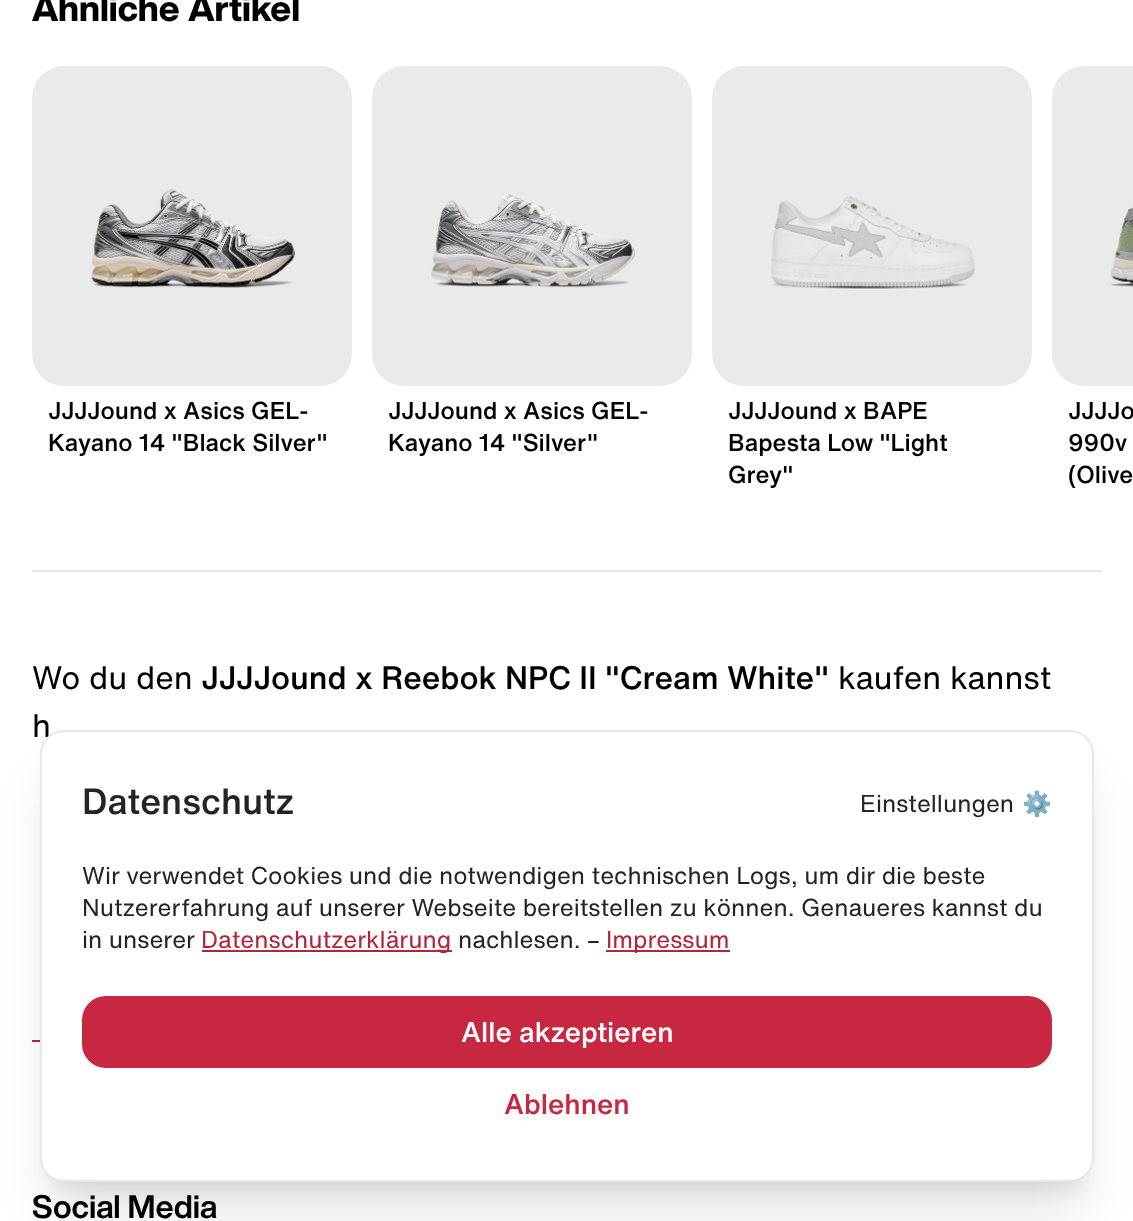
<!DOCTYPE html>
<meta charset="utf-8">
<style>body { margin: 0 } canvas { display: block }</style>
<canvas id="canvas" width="1133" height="1221"></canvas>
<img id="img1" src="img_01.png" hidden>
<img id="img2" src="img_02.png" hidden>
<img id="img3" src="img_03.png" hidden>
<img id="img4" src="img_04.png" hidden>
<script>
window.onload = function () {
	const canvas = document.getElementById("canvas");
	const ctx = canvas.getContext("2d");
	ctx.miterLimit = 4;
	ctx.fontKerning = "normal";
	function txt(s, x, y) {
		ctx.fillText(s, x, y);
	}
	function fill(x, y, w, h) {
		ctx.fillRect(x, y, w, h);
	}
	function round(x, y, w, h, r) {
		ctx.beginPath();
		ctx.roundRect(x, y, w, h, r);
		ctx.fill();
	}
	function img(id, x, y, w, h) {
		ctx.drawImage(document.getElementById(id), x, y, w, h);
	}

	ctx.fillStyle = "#FFFFFF";
	fill(0, 0, 1133, 1221);
	ctx.fillStyle = "#EAEAEA";
	round(32, 66, 320, 320, 32);
	img("img1", 91, 189, 205, 99);
	round(372, 66, 320, 320, 32);
	img("img2", 431, 193, 204, 95);
	round(712, 66, 320, 320, 32);
	img("img3", 771, 196, 205, 93);
	ctx.beginPath();
	ctx.moveTo(1084, 66);
	ctx.lineTo(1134, 66);
	ctx.lineTo(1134, 386);
	ctx.lineTo(1084, 386);
	ctx.bezierCurveTo(1066.5, 386, 1052, 371.5, 1052, 354);
	ctx.lineTo(1052, 98);
	ctx.bezierCurveTo(1052, 80.5, 1066.5, 66, 1084, 66);
	ctx.closePath();
	ctx.fill();
	img("img4", 1110, 207, 23, 80);
	ctx.fillStyle = "#E5E7EB";
	fill(32, 570, 1070, 2);
	ctx.fillStyle = "#B3233A";
	fill(32, 1040, 8, 2);
	ctx.fillStyle = "rgba(0, 0, 0, 0.1)";
	ctx.filter = "blur(10px)";
	ctx.beginPath();
	ctx.roundRect(52, 758, 1030, 428, 12);
	ctx.fill();
	ctx.filter = "none";
	ctx.filter = "blur(25px)";
	ctx.beginPath();
	ctx.roundRect(50, 780, 1034, 432, 14);
	ctx.fill();
	ctx.filter = "none";
	ctx.font = "800 36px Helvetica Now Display";
	ctx.fillStyle = "#000000";
	txt("Ähnliche Artikel", 32, 21);
	ctx.font = "500 24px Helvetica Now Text";
	txt("JJJJound x Asics GEL-", 48, 419);
	txt("Kayano 14 \"Black Silver\"", 48, 451);
	txt("JJJJound x Asics GEL-", 388, 419);
	txt("Kayano 14 \"Silver\"", 388, 451);
	txt("JJJJound x BAPE", 728, 419);
	txt("Bapesta Low \"Light", 728, 451);
	txt("Grey\"", 728, 483);
	txt("JJJJo", 1068, 419);
	txt("990v", 1068, 451);
	txt("(Olive", 1068, 483);
	ctx.font = "32px Helvetica Now Text";
	txt("Wo du den", 32, 689);
	ctx.font = "500 32px Helvetica Now Text";
	txt("JJJJound x Reebok NPC II \"Cream White\"", 201, 689);
	ctx.font = "32px Helvetica Now Text";
	txt("kaufen kannst", 838, 689);
	txt("h", 32, 737);
	ctx.font = "bold 32px Helvetica Now Display";
	txt("Social Media", 32, 1218);
	ctx.fillStyle = "#FFFFFF";
	ctx.beginPath();
	ctx.roundRect(41, 731, 1052, 450, 23);
	ctx.fill();
	ctx.strokeStyle = "#E5E7E9";
	ctx.lineWidth = 2;
	ctx.stroke();
	ctx.font = "500 36px Helvetica Now Text";
	ctx.fillStyle = "#272324";
	txt("Datenschutz", 82, 814);
	ctx.font = "24px Helvetica Now Text";
	txt("Einstellungen", 860, 812);
	ctx.font = "24px Noto Color Emoji";
	txt("⚙️", 1022, 812);
	ctx.font = "24px Helvetica Now Text";
	txt("Wir verwendet Cookies und die notwendigen technischen Logs, um dir die beste", 82, 884);
	txt("Nutzererfahrung auf unserer Webseite bereitstellen zu können. Genaueres kannst du", 82, 916);
	txt("in unserer", 82, 948);
	ctx.fillStyle = "#B3233A";
	fill(202, 950, 250, 2);
	txt("Datenschutzerklärung", 201, 948);
	ctx.fillStyle = "#272324";
	txt("nachlesen. –", 458, 948);
	ctx.fillStyle = "#B3233A";
	fill(606, 950, 124, 2);
	txt("Impressum", 606, 948);
	ctx.fillStyle = "#C72740";
	round(82, 996, 970, 72, 24);
	ctx.font = "500 28px Helvetica Now Text";
	ctx.fillStyle = "#FFFFFF";
	txt("Alle akzeptieren", 461, 1042);
	ctx.fillStyle = "#C72740";
	txt("Ablehnen", 504, 1114);
};
</script>
